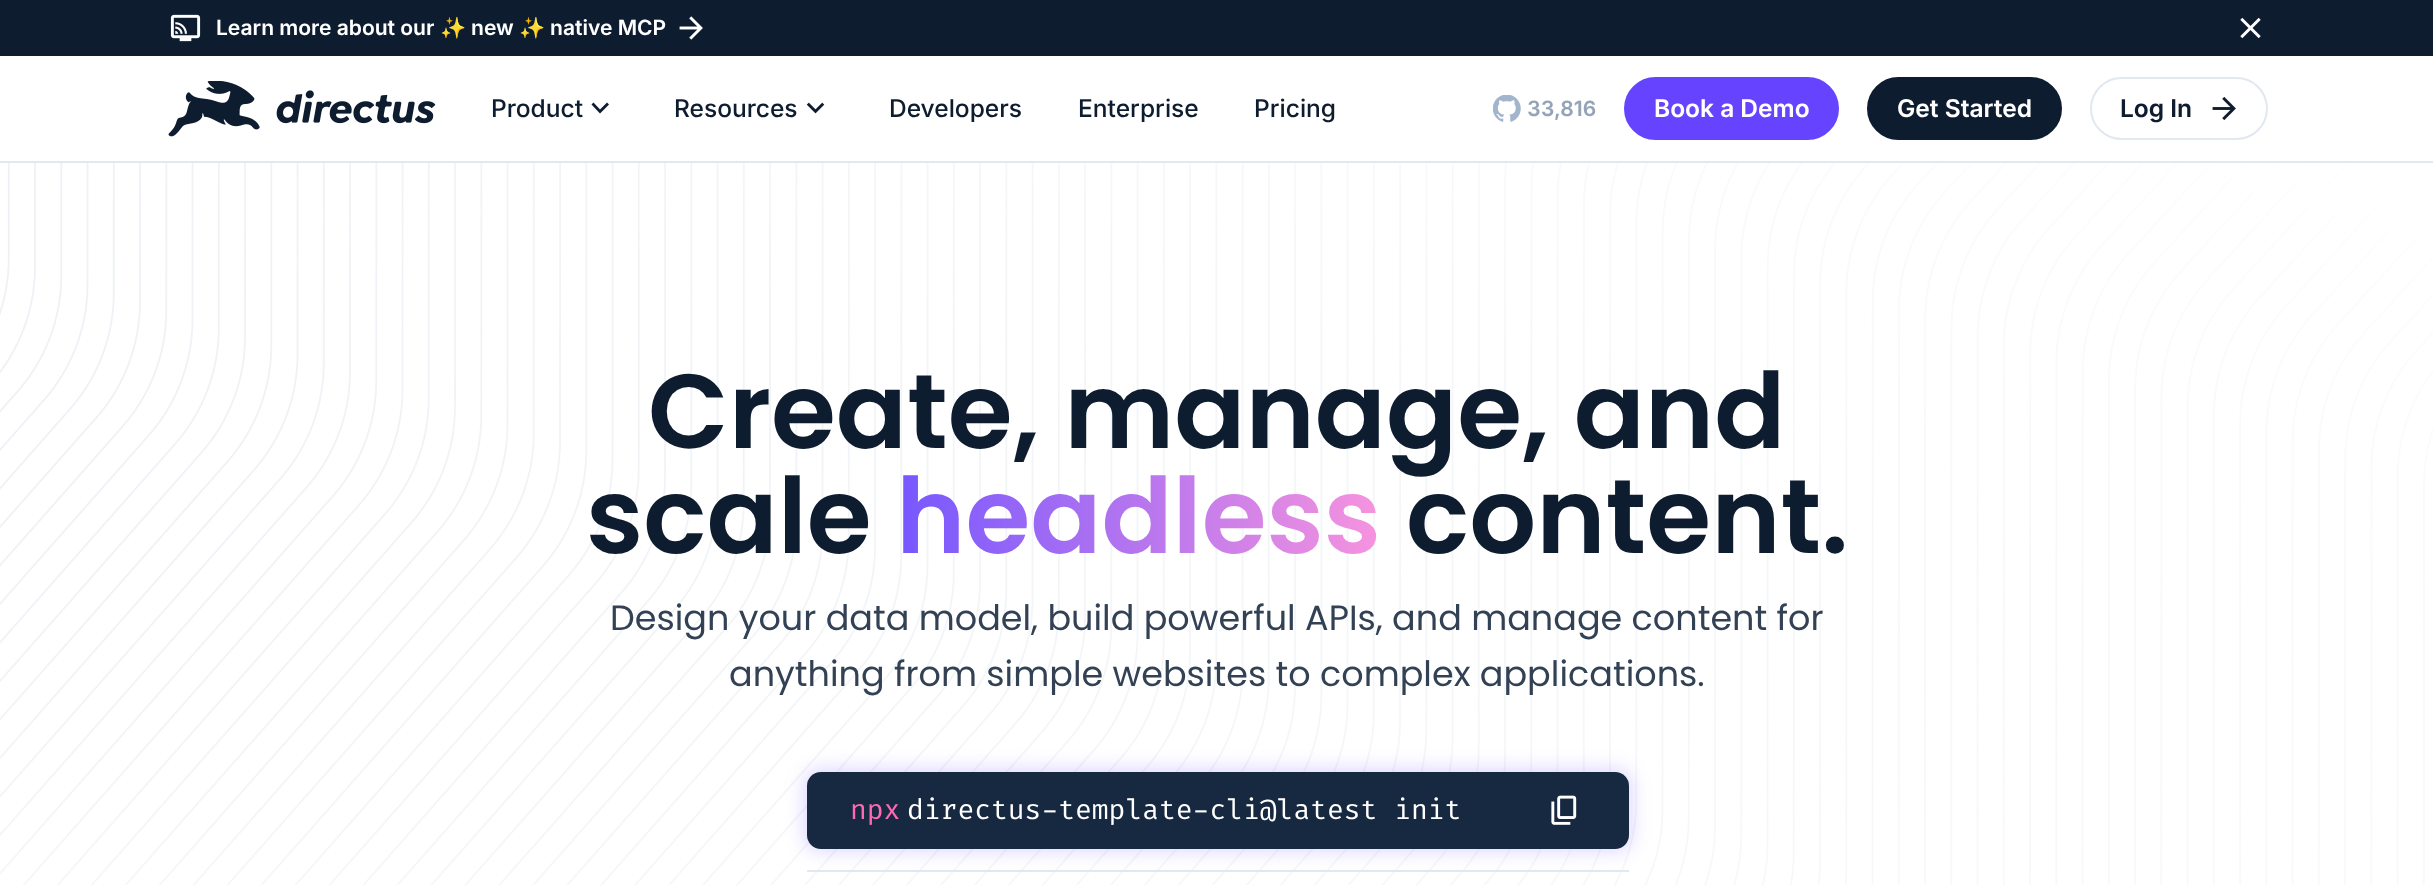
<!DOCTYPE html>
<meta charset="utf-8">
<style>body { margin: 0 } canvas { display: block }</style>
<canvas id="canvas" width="2433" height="885"></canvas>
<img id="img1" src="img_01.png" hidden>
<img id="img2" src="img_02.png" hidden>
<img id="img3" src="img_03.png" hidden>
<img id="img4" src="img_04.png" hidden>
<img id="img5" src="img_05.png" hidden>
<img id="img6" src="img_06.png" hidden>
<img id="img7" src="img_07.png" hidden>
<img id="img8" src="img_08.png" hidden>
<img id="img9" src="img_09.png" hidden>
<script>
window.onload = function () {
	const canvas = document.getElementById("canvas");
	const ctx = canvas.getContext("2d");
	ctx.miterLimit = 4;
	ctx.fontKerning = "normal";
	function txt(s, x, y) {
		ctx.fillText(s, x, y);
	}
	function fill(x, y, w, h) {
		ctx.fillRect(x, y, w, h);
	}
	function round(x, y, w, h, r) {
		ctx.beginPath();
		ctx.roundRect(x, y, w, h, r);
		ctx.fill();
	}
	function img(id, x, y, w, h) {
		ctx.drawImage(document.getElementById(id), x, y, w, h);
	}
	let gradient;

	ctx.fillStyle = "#FFFFFF";
	fill(0, 0, 2433, 885);
	ctx.fillStyle = "#E2E8F0";
	fill(0, 161, 2433, 2);
	ctx.fillStyle = "#0E1C2F";
	fill(0, 0, 2433, 56);
	img("img1", 170, 14, 31, 28);
	img("img2", 679, 16, 24, 24);
	img("img3", 2240, 17, 21, 22);
	img("img4", 168, 81, 268, 56);
	ctx.beginPath();
	ctx.moveTo(600, 113.5);
	ctx.lineTo(591.5, 104.5);
	ctx.lineTo(593.5, 102.5);
	ctx.lineTo(600, 109.5);
	ctx.lineTo(607, 102.5);
	ctx.lineTo(609, 104.5);
	ctx.closePath();
	ctx.fill();
	img("img5", 806, 102, 19, 12);
	img("img6", 1493, 95, 28, 27);
	ctx.fillStyle = "#6644FF";
	ctx.beginPath();
	ctx.roundRect(1625, 78, 213, 61, 30.5);
	ctx.fill();
	ctx.strokeStyle = "#6644FF";
	ctx.lineWidth = 2;
	ctx.stroke();
	ctx.fillStyle = "#0E1C2F";
	ctx.beginPath();
	ctx.roundRect(1868, 78, 193, 61, 30.5);
	ctx.fill();
	ctx.strokeStyle = "#0E1C2F";
	ctx.stroke();
	ctx.beginPath();
	ctx.roundRect(2091, 78, 176, 61, 30.5);
	ctx.strokeStyle = "#E2E8F0";
	ctx.stroke();
	img("img7", 2212, 96, 24, 25);
	img("img8", 0, 163, 2433, 722);
	gradient = ctx.createLinearGradient(1162, 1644, 1272, 81);
	gradient.addColorStop(0.2, "#FFFFFF");
	gradient.addColorStop(1, "rgba(255, 255, 255, 0)");
	ctx.fillStyle = gradient;
	fill(0, 163, 2433, 722);
	gradient = ctx.createLinearGradient(1562, -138, 873, 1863);
	gradient.addColorStop(0, "#FFFFFF");
	gradient.addColorStop(1, "rgba(255, 255, 255, 0)");
	ctx.fillStyle = gradient;
	fill(0, 163, 2433, 722);
	ctx.fillStyle = "#E2E8F0";
	fill(807, 870, 822, 2);
	ctx.fillStyle = "rgba(102, 68, 255, 0.2)";
	ctx.filter = "blur(9px)";
	ctx.beginPath();
	ctx.roundRect(803, 768, 830, 84, 18);
	ctx.fill();
	ctx.filter = "none";
	ctx.fillStyle = "#172940";
	round(807, 772, 822, 77, 14);
	img("img9", 1551, 795, 26, 30);
	ctx.font = "600 21px Inter";
	ctx.fillStyle = "#FFFFFF";
	txt("Learn more about our", 216, 35);
	ctx.font = "bold 21px Noto Color Emoji";
	txt("✨", 440, 35);
	ctx.font = "600 21px Inter";
	txt("new", 471, 35);
	ctx.font = "bold 21px Noto Color Emoji";
	txt("✨", 519, 35);
	ctx.font = "600 21px Inter";
	txt("native MCP", 550, 35);
	ctx.font = "500 24.5px Inter";
	ctx.fillStyle = "#0E1C2F";
	txt("Product", 491, 117);
	txt("Resources", 674, 117);
	txt("Developers", 889, 117);
	txt("Enterprise", 1078, 117);
	txt("Pricing", 1254, 117);
	ctx.font = "600 21px Inter";
	ctx.fillStyle = "#94A3B8";
	txt("33,816", 1527, 116);
	ctx.font = "600 24.5px Inter";
	ctx.fillStyle = "#FFFFFF";
	txt("Book a Demo", 1654, 117);
	txt("Get Started", 1897, 117);
	ctx.fillStyle = "#0E1C2F";
	txt("Log In", 2120, 117);
	ctx.font = "600 105px Poppins";
	txt("Create, manage, and", 648, 448);
	txt("scale", 586, 553);
	gradient = ctx.createLinearGradient(894, 525, 1408, 507);
	gradient.addColorStop(0, "#7557FF");
	gradient.addColorStop(1, "#FE97DC");
	ctx.fillStyle = gradient;
	txt("headless", 896, 553);
	ctx.fillStyle = "#0E1C2F";
	txt("content.", 1406, 553);
	ctx.font = "35px Poppins";
	ctx.fillStyle = "#334155";
	txt("Design your data model, build powerful APIs, and manage content for", 610, 630);
	txt("anything from simple websites to complex applications.", 729, 686);
	ctx.font = "300 28px Fira Code";
	ctx.fillStyle = "#FF69B4";
	txt("npx", 850, 819);
	ctx.fillStyle = "#FFFFFF";
	txt("directus-template-cli@latest init", 907, 819);
};
</script>
